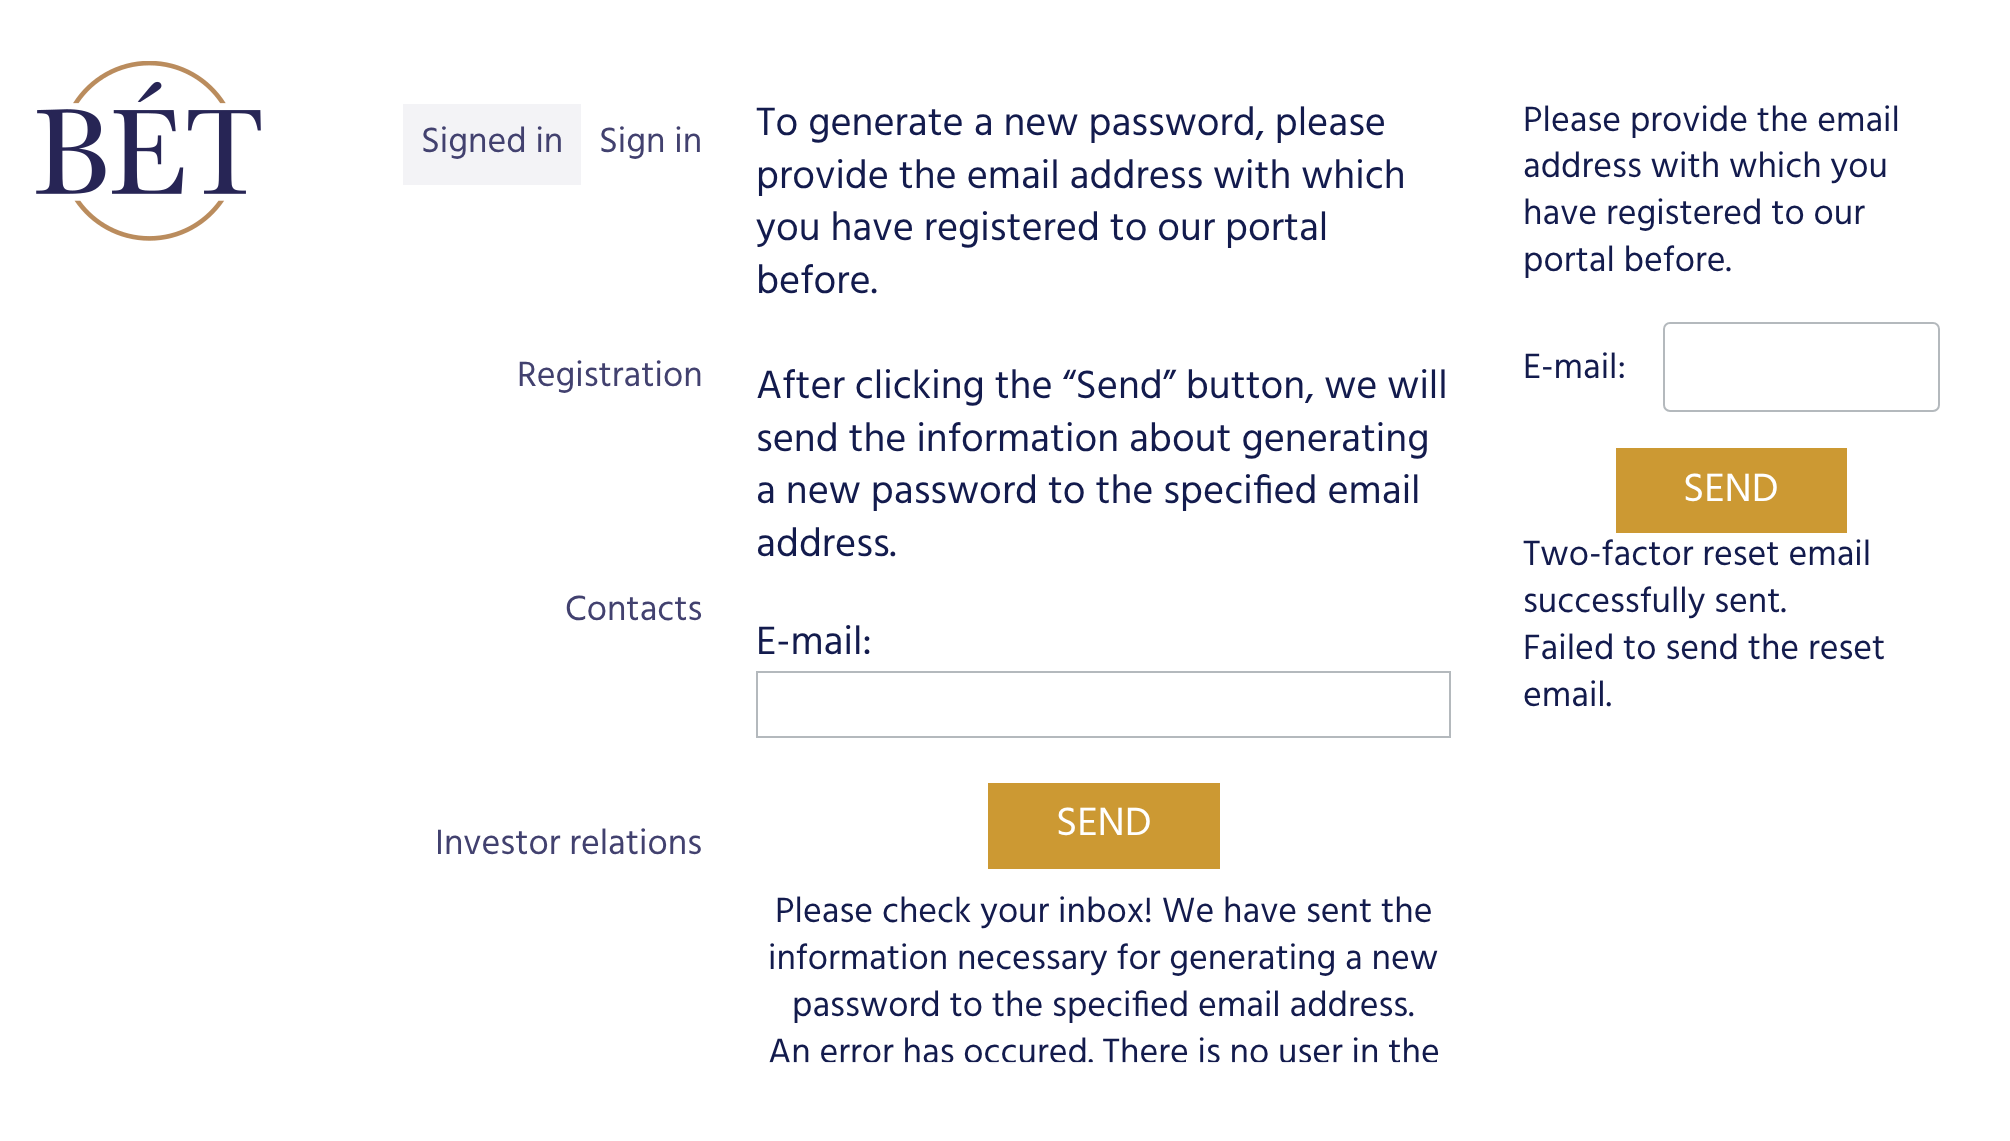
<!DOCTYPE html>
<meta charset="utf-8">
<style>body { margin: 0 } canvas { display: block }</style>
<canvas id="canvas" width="2010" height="1141"></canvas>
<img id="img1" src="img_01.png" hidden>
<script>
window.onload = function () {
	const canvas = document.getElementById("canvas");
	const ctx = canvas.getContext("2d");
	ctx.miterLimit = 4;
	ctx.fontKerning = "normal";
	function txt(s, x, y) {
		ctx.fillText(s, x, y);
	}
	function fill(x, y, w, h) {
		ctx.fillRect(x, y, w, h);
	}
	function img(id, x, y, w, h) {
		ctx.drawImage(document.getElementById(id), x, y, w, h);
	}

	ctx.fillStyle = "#FFFFFF";
	fill(0, 0, 2010, 1141);
	img("img1", 36, 61, 225, 180);
	ctx.fillStyle = "#F3F3F6";
	fill(403, 104, 178, 81);
	ctx.strokeStyle = "#B4B9BD";
	ctx.lineWidth = 2;
	ctx.strokeRect(757, 672, 693, 65);
	ctx.fillStyle = "#CC9933";
	fill(988, 783, 232, 86);
	ctx.beginPath();
	ctx.roundRect(1664, 323, 275, 88, 6);
	ctx.stroke();
	fill(1616, 448, 231, 85);
	ctx.font = "36px Hind";
	ctx.fillStyle = "#42416F";
	txt("Signed in", 421, 152);
	txt("Sign in", 599, 152);
	txt("Registration", 517, 386);
	txt("Contacts", 565, 620);
	txt("Investor relations", 435, 854);
	ctx.font = "40.5px Hind";
	ctx.fillStyle = "#131B4D";
	txt("To generate a new password, please", 756, 135);
	txt("provide the email address with which", 756, 188);
	txt("you have registered to our portal", 756, 240);
	txt("before.", 756, 293);
	txt("After clicking the “Send” button, we will", 756, 398);
	txt("send the information about generating", 756, 451);
	txt("a new password to the specified email", 756, 503);
	txt("address.", 756, 556);
	txt("E-mail:", 756, 654);
	ctx.fillStyle = "#FFFFFF";
	txt("SEND", 1056, 835);
	ctx.font = "36px Hind";
	ctx.fillStyle = "#131B4D";
	txt("Please check your inbox! We have sent the", 775, 922);
	txt("information necessary for generating a new", 768, 969);
	txt("password to the specified email address.", 792, 1016);
	txt("An error has occured. There is no user in the", 768, 1063);
	txt("Please provide the email", 1523, 131);
	txt("address with which you", 1523, 177);
	txt("have registered to our", 1523, 224);
	txt("portal before.", 1523, 271);
	txt("E-mail:", 1523, 378);
	ctx.font = "40.5px Hind";
	ctx.fillStyle = "#FFFFFF";
	txt("SEND", 1683, 501);
	ctx.font = "36px Hind";
	ctx.fillStyle = "#131B4D";
	txt("Two-factor reset email", 1523, 565);
	txt("successfully sent.", 1523, 612);
	txt("Failed to send the reset", 1523, 659);
	txt("email.", 1523, 706);
	ctx.fillStyle = "rgba(255, 255, 255, 0.9)";
	fill(769, 1062, 668, 2);
};
</script>
